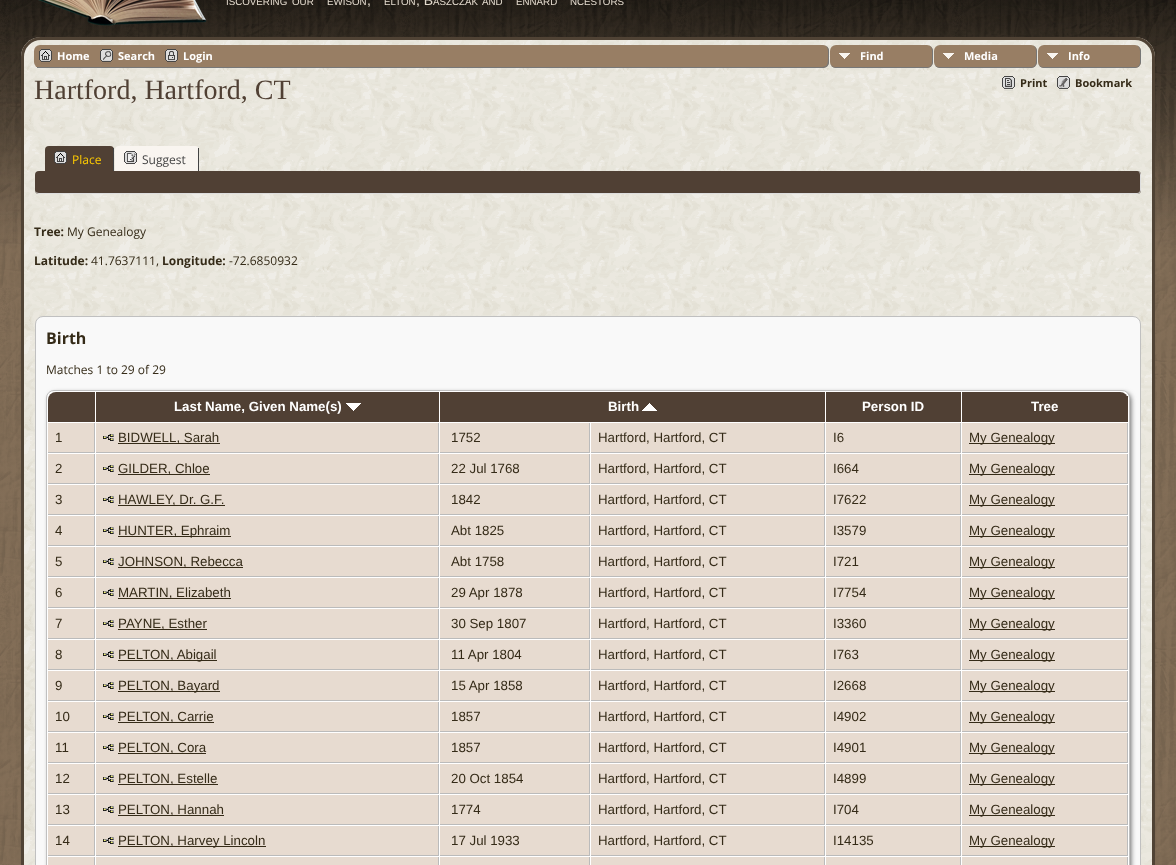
<!DOCTYPE html>
<meta charset="utf-8">
<style>body { margin: 0 } canvas { display: block }</style>
<canvas id="canvas" width="1176" height="865"></canvas>
<img id="img1" src="img_01.png" hidden>
<img id="img2" src="img_02.png" hidden>
<img id="img3" src="img_03.png" hidden>
<img id="img4" src="img_04.png" hidden>
<img id="img5" src="img_05.png" hidden>
<img id="img6" src="img_06.png" hidden>
<img id="img7" src="img_07.png" hidden>
<img id="img8" src="img_08.png" hidden>
<img id="img9" src="img_09.png" hidden>
<img id="img10" src="img_10.png" hidden>
<img id="img11" src="img_11.png" hidden>
<img id="img12" src="img_12.png" hidden>
<img id="img13" src="img_13.png" hidden>
<img id="img14" src="img_14.png" hidden>
<img id="img15" src="img_15.png" hidden>
<script>
window.onload = function () {
	const canvas = document.getElementById("canvas");
	const ctx = canvas.getContext("2d");
	ctx.miterLimit = 4;
	ctx.fontKerning = "normal";
	function txt(s, x, y) {
		ctx.fillText(s, x, y);
	}
	function fill(x, y, w, h) {
		ctx.fillRect(x, y, w, h);
	}
	function round(x, y, w, h, r) {
		ctx.beginPath();
		ctx.roundRect(x, y, w, h, r);
		ctx.fill();
	}
	function img(id, x, y, w, h) {
		ctx.drawImage(document.getElementById(id), x, y, w, h);
	}

	ctx.fillStyle = "#FFFFFF";
	fill(0, 0, 1176, 865);
	img("img1", 0, 0, 1176, 865);
	img("img2", 38, 0, 169, 26);
	img("img3", 21, 37, 1134, 828);
	ctx.beginPath();
	ctx.roundRect(22.5, 38.5, 1131, 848, 18.5);
	ctx.strokeStyle = "#504335";
	ctx.lineWidth = 3;
	ctx.stroke();
	ctx.fillStyle = "#987E64";
	round(34, 45, 1108, 23, 6);
	ctx.fillStyle = "#777777";
	fill(37, 67, 781, 1);
	img("img4", 39, 49, 13, 15);
	img("img5", 100, 49, 13, 15);
	img("img6", 165, 49, 13, 15);
	img("img7", 823, 45, 319, 23);
	ctx.fillStyle = "#987E64";
	ctx.beginPath();
	ctx.roundRect(818, 45, 11, 23, [0, 6, 6, 0]);
	ctx.fill();
	ctx.fillStyle = "#777777";
	ctx.beginPath();
	ctx.moveTo(818, 45);
	ctx.bezierCurveTo(822, 45, 828, 44.5, 829, 50);
	ctx.lineTo(829, 63);
	ctx.bezierCurveTo(828, 68.5, 822, 68, 818, 68);
	ctx.closePath();
	ctx.moveTo(818, 45);
	ctx.lineTo(824, 45);
	ctx.bezierCurveTo(829, 46.5, 828, 53, 828, 56.5);
	ctx.bezierCurveTo(828, 66.5, 827.5, 67, 818, 67);
	ctx.closePath();
	ctx.fill("evenodd");
	ctx.fillStyle = "#987E64";
	round(830, 45, 103, 23, 6);
	img("img8", 839, 53, 11, 6);
	ctx.fillStyle = "#777777";
	ctx.beginPath();
	ctx.moveTo(836, 45);
	ctx.lineTo(927, 45);
	ctx.bezierCurveTo(930, 45, 933, 48, 933, 51);
	ctx.lineTo(933, 62);
	ctx.bezierCurveTo(933, 65, 930, 68, 927, 68);
	ctx.lineTo(836, 68);
	ctx.bezierCurveTo(833, 68, 830, 65, 830, 62);
	ctx.lineTo(830, 51);
	ctx.bezierCurveTo(830, 48, 833, 45, 836, 45);
	ctx.closePath();
	ctx.moveTo(836, 45);
	ctx.lineTo(927, 45);
	ctx.bezierCurveTo(930, 45, 932, 48, 932, 51);
	ctx.lineTo(932, 62);
	ctx.bezierCurveTo(932, 65, 930, 67, 927, 67);
	ctx.lineTo(836, 67);
	ctx.bezierCurveTo(833, 67, 830, 65, 830, 62);
	ctx.lineTo(830, 51);
	ctx.bezierCurveTo(830, 48, 833, 45, 836, 45);
	ctx.closePath();
	ctx.fill("evenodd");
	ctx.fillStyle = "#987E64";
	round(934, 45, 103, 23, 6);
	img("img8", 943, 53, 11, 6);
	ctx.fillStyle = "#777777";
	ctx.beginPath();
	ctx.moveTo(940, 45);
	ctx.lineTo(1031, 45);
	ctx.bezierCurveTo(1034, 45, 1037, 48, 1037, 51);
	ctx.lineTo(1037, 62);
	ctx.bezierCurveTo(1037, 65, 1034, 68, 1031, 68);
	ctx.lineTo(940, 68);
	ctx.bezierCurveTo(937, 68, 934, 65, 934, 62);
	ctx.lineTo(934, 51);
	ctx.bezierCurveTo(934, 48, 937, 45, 940, 45);
	ctx.closePath();
	ctx.moveTo(940, 45);
	ctx.lineTo(1031, 45);
	ctx.bezierCurveTo(1034, 45, 1036, 48, 1036, 51);
	ctx.lineTo(1036, 62);
	ctx.bezierCurveTo(1036, 65, 1034, 67, 1031, 67);
	ctx.lineTo(940, 67);
	ctx.bezierCurveTo(937, 67, 934, 65, 934, 62);
	ctx.lineTo(934, 51);
	ctx.bezierCurveTo(934, 48, 937, 45, 940, 45);
	ctx.closePath();
	ctx.fill("evenodd");
	ctx.fillStyle = "#987E64";
	round(1038, 45, 103, 23, 6);
	img("img8", 1047, 53, 11, 6);
	ctx.fillStyle = "#777777";
	ctx.beginPath();
	ctx.moveTo(1044, 45);
	ctx.lineTo(1135, 45);
	ctx.bezierCurveTo(1138, 45, 1141, 48, 1141, 51);
	ctx.lineTo(1141, 62);
	ctx.bezierCurveTo(1141, 65, 1138, 68, 1135, 68);
	ctx.lineTo(1044, 68);
	ctx.bezierCurveTo(1041, 68, 1038, 65, 1038, 62);
	ctx.lineTo(1038, 51);
	ctx.bezierCurveTo(1038, 48, 1041, 45, 1044, 45);
	ctx.closePath();
	ctx.moveTo(1044, 45);
	ctx.lineTo(1135, 45);
	ctx.bezierCurveTo(1138, 45, 1140, 48, 1140, 51);
	ctx.lineTo(1140, 62);
	ctx.bezierCurveTo(1140, 65, 1138, 67, 1135, 67);
	ctx.lineTo(1044, 67);
	ctx.bezierCurveTo(1041, 67, 1038, 65, 1038, 62);
	ctx.lineTo(1038, 51);
	ctx.bezierCurveTo(1038, 48, 1041, 45, 1044, 45);
	ctx.closePath();
	ctx.fill("evenodd");
	img("img9", 1002, 76, 13, 15);
	img("img10", 1057, 76, 13, 15);
	ctx.fillStyle = "#504034";
	ctx.beginPath();
	ctx.roundRect(45, 146, 69, 25, [4, 4, 0, 0]);
	ctx.fill();
	ctx.fillStyle = "#444444";
	fill(113, 148, 1, 23);
	img("img11", 54, 151, 13, 13);
	ctx.fillStyle = "#F9F5F0";
	ctx.beginPath();
	ctx.roundRect(115, 146, 84, 25, [4, 4, 0, 0]);
	ctx.fill();
	ctx.fillStyle = "#444444";
	fill(198, 148, 1, 23);
	img("img12", 124, 151, 13, 13);
	ctx.fillStyle = "#504034";
	round(35, 171, 1106, 23, 4);
	ctx.fillStyle = "#DDDDDD";
	ctx.beginPath();
	ctx.moveTo(39, 171);
	ctx.lineTo(1137, 171);
	ctx.bezierCurveTo(1139, 171, 1141, 173, 1141, 175);
	ctx.lineTo(1141, 190);
	ctx.bezierCurveTo(1141, 192, 1139, 194, 1137, 194);
	ctx.lineTo(39, 194);
	ctx.bezierCurveTo(37, 194, 35, 192, 35, 190);
	ctx.lineTo(35, 175);
	ctx.bezierCurveTo(35, 173, 37, 171, 39, 171);
	ctx.closePath();
	ctx.moveTo(39, 171);
	ctx.lineTo(1137, 171);
	ctx.bezierCurveTo(1139, 171, 1140, 173, 1140, 175);
	ctx.lineTo(1140, 190);
	ctx.bezierCurveTo(1140, 192, 1139, 193, 1137, 193);
	ctx.lineTo(39, 193);
	ctx.bezierCurveTo(37, 193, 35, 192, 35, 190);
	ctx.lineTo(35, 175);
	ctx.bezierCurveTo(35, 173, 37, 171, 39, 171);
	ctx.closePath();
	ctx.fill("evenodd");
	ctx.fillStyle = "#F9F9F9";
	ctx.beginPath();
	ctx.roundRect(35.5, 316.5, 1105, 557, 7.5);
	ctx.fill();
	ctx.strokeStyle = "#C0C0C0";
	ctx.lineWidth = 1;
	ctx.stroke();
	ctx.fillStyle = "#666666";
	ctx.filter = "blur(2.5px)";
	ctx.beginPath();
	ctx.roundRect(49, 393, 1082, 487, 7);
	ctx.fill();
	ctx.filter = "none";
	ctx.fillStyle = "#FFFFFF";
	ctx.beginPath();
	ctx.roundRect(46.5, 390.5, 1083, 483, 7.5);
	ctx.fill();
	ctx.stroke();
	ctx.fillStyle = "#504034";
	ctx.beginPath();
	ctx.roundRect(48, 392, 47, 30, [8, 0, 0, 0]);
	ctx.fill();
	fill(96, 392, 343, 30);
	img("img13", 346, 403, 15, 8);
	fill(440, 392, 385, 30);
	img("img14", 642, 403, 15, 8);
	fill(826, 392, 135, 30);
	ctx.beginPath();
	ctx.roundRect(962, 392, 166, 30, [0, 8, 0, 0]);
	ctx.fill();
	fill(1127, 396, 1, 4);
	ctx.fillStyle = "#E7DBD0";
	fill(48, 423, 46, 29);
	ctx.fillStyle = "#BBBBBB";
	fill(94, 423, 1, 30);
	fill(48, 452, 47, 1);
	ctx.fillStyle = "#E7DBD0";
	fill(96, 423, 342, 29);
	ctx.fillStyle = "#BBBBBB";
	fill(438, 423, 1, 30);
	fill(96, 452, 343, 1);
	img("img15", 103, 434, 11, 7);
	ctx.fillStyle = "#352B18";
	fill(118, 443, 102, 1);
	ctx.fillStyle = "#E7DBD0";
	fill(440, 423, 149, 29);
	ctx.fillStyle = "#BBBBBB";
	fill(589, 423, 1, 30);
	fill(440, 452, 150, 1);
	ctx.fillStyle = "#E7DBD0";
	fill(591, 423, 233, 29);
	ctx.fillStyle = "#BBBBBB";
	fill(824, 423, 1, 30);
	fill(591, 452, 234, 1);
	ctx.fillStyle = "#E7DBD0";
	fill(826, 423, 134, 29);
	ctx.fillStyle = "#BBBBBB";
	fill(960, 423, 1, 30);
	fill(826, 452, 135, 1);
	ctx.fillStyle = "#E7DBD0";
	fill(962, 423, 165, 29);
	ctx.fillStyle = "#BBBBBB";
	fill(1127, 423, 1, 30);
	fill(962, 452, 166, 1);
	ctx.fillStyle = "#352B18";
	fill(969, 443, 86, 1);
	ctx.fillStyle = "#E7DBD0";
	fill(48, 454, 46, 29);
	ctx.fillStyle = "#BBBBBB";
	fill(94, 454, 1, 30);
	fill(48, 483, 47, 1);
	ctx.fillStyle = "#E7DBD0";
	fill(96, 454, 342, 29);
	ctx.fillStyle = "#BBBBBB";
	fill(438, 454, 1, 30);
	fill(96, 483, 343, 1);
	img("img15", 103, 465, 11, 7);
	ctx.fillStyle = "#352B18";
	fill(118, 474, 92, 1);
	ctx.fillStyle = "#E7DBD0";
	fill(440, 454, 149, 29);
	ctx.fillStyle = "#BBBBBB";
	fill(589, 454, 1, 30);
	fill(440, 483, 150, 1);
	ctx.fillStyle = "#E7DBD0";
	fill(591, 454, 233, 29);
	ctx.fillStyle = "#BBBBBB";
	fill(824, 454, 1, 30);
	fill(591, 483, 234, 1);
	ctx.fillStyle = "#E7DBD0";
	fill(826, 454, 134, 29);
	ctx.fillStyle = "#BBBBBB";
	fill(960, 454, 1, 30);
	fill(826, 483, 135, 1);
	ctx.fillStyle = "#E7DBD0";
	fill(962, 454, 165, 29);
	ctx.fillStyle = "#BBBBBB";
	fill(1127, 454, 1, 30);
	fill(962, 483, 166, 1);
	ctx.fillStyle = "#352B18";
	fill(969, 474, 86, 1);
	ctx.fillStyle = "#E7DBD0";
	fill(48, 485, 46, 29);
	ctx.fillStyle = "#BBBBBB";
	fill(94, 485, 1, 30);
	fill(48, 514, 47, 1);
	ctx.fillStyle = "#E7DBD0";
	fill(96, 485, 342, 29);
	ctx.fillStyle = "#BBBBBB";
	fill(438, 485, 1, 30);
	fill(96, 514, 343, 1);
	img("img15", 103, 496, 11, 7);
	ctx.fillStyle = "#352B18";
	fill(118, 505, 107, 1);
	ctx.fillStyle = "#E7DBD0";
	fill(440, 485, 149, 29);
	ctx.fillStyle = "#BBBBBB";
	fill(589, 485, 1, 30);
	fill(440, 514, 150, 1);
	ctx.fillStyle = "#E7DBD0";
	fill(591, 485, 233, 29);
	ctx.fillStyle = "#BBBBBB";
	fill(824, 485, 1, 30);
	fill(591, 514, 234, 1);
	ctx.fillStyle = "#E7DBD0";
	fill(826, 485, 134, 29);
	ctx.fillStyle = "#BBBBBB";
	fill(960, 485, 1, 30);
	fill(826, 514, 135, 1);
	ctx.fillStyle = "#E7DBD0";
	fill(962, 485, 165, 29);
	ctx.fillStyle = "#BBBBBB";
	fill(1127, 485, 1, 30);
	fill(962, 514, 166, 1);
	ctx.fillStyle = "#352B18";
	fill(969, 505, 86, 1);
	ctx.fillStyle = "#E7DBD0";
	fill(48, 516, 46, 29);
	ctx.fillStyle = "#BBBBBB";
	fill(94, 516, 1, 30);
	fill(48, 545, 47, 1);
	ctx.fillStyle = "#E7DBD0";
	fill(96, 516, 342, 29);
	ctx.fillStyle = "#BBBBBB";
	fill(438, 516, 1, 30);
	fill(96, 545, 343, 1);
	img("img15", 103, 527, 11, 7);
	ctx.fillStyle = "#352B18";
	fill(118, 536, 113, 1);
	ctx.fillStyle = "#E7DBD0";
	fill(440, 516, 149, 29);
	ctx.fillStyle = "#BBBBBB";
	fill(589, 516, 1, 30);
	fill(440, 545, 150, 1);
	ctx.fillStyle = "#E7DBD0";
	fill(591, 516, 233, 29);
	ctx.fillStyle = "#BBBBBB";
	fill(824, 516, 1, 30);
	fill(591, 545, 234, 1);
	ctx.fillStyle = "#E7DBD0";
	fill(826, 516, 134, 29);
	ctx.fillStyle = "#BBBBBB";
	fill(960, 516, 1, 30);
	fill(826, 545, 135, 1);
	ctx.fillStyle = "#E7DBD0";
	fill(962, 516, 165, 29);
	ctx.fillStyle = "#BBBBBB";
	fill(1127, 516, 1, 30);
	fill(962, 545, 166, 1);
	ctx.fillStyle = "#352B18";
	fill(969, 536, 86, 1);
	ctx.fillStyle = "#E7DBD0";
	fill(48, 547, 46, 29);
	ctx.fillStyle = "#BBBBBB";
	fill(94, 547, 1, 30);
	fill(48, 576, 47, 1);
	ctx.fillStyle = "#E7DBD0";
	fill(96, 547, 342, 29);
	ctx.fillStyle = "#BBBBBB";
	fill(438, 547, 1, 30);
	fill(96, 576, 343, 1);
	img("img15", 103, 558, 11, 7);
	ctx.fillStyle = "#352B18";
	fill(118, 567, 125, 1);
	ctx.fillStyle = "#E7DBD0";
	fill(440, 547, 149, 29);
	ctx.fillStyle = "#BBBBBB";
	fill(589, 547, 1, 30);
	fill(440, 576, 150, 1);
	ctx.fillStyle = "#E7DBD0";
	fill(591, 547, 233, 29);
	ctx.fillStyle = "#BBBBBB";
	fill(824, 547, 1, 30);
	fill(591, 576, 234, 1);
	ctx.fillStyle = "#E7DBD0";
	fill(826, 547, 134, 29);
	ctx.fillStyle = "#BBBBBB";
	fill(960, 547, 1, 30);
	fill(826, 576, 135, 1);
	ctx.fillStyle = "#E7DBD0";
	fill(962, 547, 165, 29);
	ctx.fillStyle = "#BBBBBB";
	fill(1127, 547, 1, 30);
	fill(962, 576, 166, 1);
	ctx.fillStyle = "#352B18";
	fill(969, 567, 86, 1);
	ctx.fillStyle = "#E7DBD0";
	fill(48, 578, 46, 29);
	ctx.fillStyle = "#BBBBBB";
	fill(94, 578, 1, 30);
	fill(48, 607, 47, 1);
	ctx.fillStyle = "#E7DBD0";
	fill(96, 578, 342, 29);
	ctx.fillStyle = "#BBBBBB";
	fill(438, 578, 1, 30);
	fill(96, 607, 343, 1);
	img("img15", 103, 589, 11, 7);
	ctx.fillStyle = "#352B18";
	fill(118, 598, 113, 1);
	ctx.fillStyle = "#E7DBD0";
	fill(440, 578, 149, 29);
	ctx.fillStyle = "#BBBBBB";
	fill(589, 578, 1, 30);
	fill(440, 607, 150, 1);
	ctx.fillStyle = "#E7DBD0";
	fill(591, 578, 233, 29);
	ctx.fillStyle = "#BBBBBB";
	fill(824, 578, 1, 30);
	fill(591, 607, 234, 1);
	ctx.fillStyle = "#E7DBD0";
	fill(826, 578, 134, 29);
	ctx.fillStyle = "#BBBBBB";
	fill(960, 578, 1, 30);
	fill(826, 607, 135, 1);
	ctx.fillStyle = "#E7DBD0";
	fill(962, 578, 165, 29);
	ctx.fillStyle = "#BBBBBB";
	fill(1127, 578, 1, 30);
	fill(962, 607, 166, 1);
	ctx.fillStyle = "#352B18";
	fill(969, 598, 86, 1);
	ctx.fillStyle = "#E7DBD0";
	fill(48, 609, 46, 29);
	ctx.fillStyle = "#BBBBBB";
	fill(94, 609, 1, 30);
	fill(48, 638, 47, 1);
	ctx.fillStyle = "#E7DBD0";
	fill(96, 609, 342, 29);
	ctx.fillStyle = "#BBBBBB";
	fill(438, 609, 1, 30);
	fill(96, 638, 343, 1);
	img("img15", 103, 620, 11, 7);
	ctx.fillStyle = "#352B18";
	fill(118, 629, 89, 1);
	ctx.fillStyle = "#E7DBD0";
	fill(440, 609, 149, 29);
	ctx.fillStyle = "#BBBBBB";
	fill(589, 609, 1, 30);
	fill(440, 638, 150, 1);
	ctx.fillStyle = "#E7DBD0";
	fill(591, 609, 233, 29);
	ctx.fillStyle = "#BBBBBB";
	fill(824, 609, 1, 30);
	fill(591, 638, 234, 1);
	ctx.fillStyle = "#E7DBD0";
	fill(826, 609, 134, 29);
	ctx.fillStyle = "#BBBBBB";
	fill(960, 609, 1, 30);
	fill(826, 638, 135, 1);
	ctx.fillStyle = "#E7DBD0";
	fill(962, 609, 165, 29);
	ctx.fillStyle = "#BBBBBB";
	fill(1127, 609, 1, 30);
	fill(962, 638, 166, 1);
	ctx.fillStyle = "#352B18";
	fill(969, 629, 86, 1);
	ctx.fillStyle = "#E7DBD0";
	fill(48, 640, 46, 29);
	ctx.fillStyle = "#BBBBBB";
	fill(94, 640, 1, 30);
	fill(48, 669, 47, 1);
	ctx.fillStyle = "#E7DBD0";
	fill(96, 640, 342, 29);
	ctx.fillStyle = "#BBBBBB";
	fill(438, 640, 1, 30);
	fill(96, 669, 343, 1);
	img("img15", 103, 651, 11, 7);
	ctx.fillStyle = "#352B18";
	fill(118, 660, 99, 1);
	ctx.fillStyle = "#E7DBD0";
	fill(440, 640, 149, 29);
	ctx.fillStyle = "#BBBBBB";
	fill(589, 640, 1, 30);
	fill(440, 669, 150, 1);
	ctx.fillStyle = "#E7DBD0";
	fill(591, 640, 233, 29);
	ctx.fillStyle = "#BBBBBB";
	fill(824, 640, 1, 30);
	fill(591, 669, 234, 1);
	ctx.fillStyle = "#E7DBD0";
	fill(826, 640, 134, 29);
	ctx.fillStyle = "#BBBBBB";
	fill(960, 640, 1, 30);
	fill(826, 669, 135, 1);
	ctx.fillStyle = "#E7DBD0";
	fill(962, 640, 165, 29);
	ctx.fillStyle = "#BBBBBB";
	fill(1127, 640, 1, 30);
	fill(962, 669, 166, 1);
	ctx.fillStyle = "#352B18";
	fill(969, 660, 86, 1);
	ctx.fillStyle = "#E7DBD0";
	fill(48, 671, 46, 29);
	ctx.fillStyle = "#BBBBBB";
	fill(94, 671, 1, 30);
	fill(48, 700, 47, 1);
	ctx.fillStyle = "#E7DBD0";
	fill(96, 671, 342, 29);
	ctx.fillStyle = "#BBBBBB";
	fill(438, 671, 1, 30);
	fill(96, 700, 343, 1);
	img("img15", 103, 682, 11, 7);
	ctx.fillStyle = "#352B18";
	fill(118, 691, 102, 1);
	ctx.fillStyle = "#E7DBD0";
	fill(440, 671, 149, 29);
	ctx.fillStyle = "#BBBBBB";
	fill(589, 671, 1, 30);
	fill(440, 700, 150, 1);
	ctx.fillStyle = "#E7DBD0";
	fill(591, 671, 233, 29);
	ctx.fillStyle = "#BBBBBB";
	fill(824, 671, 1, 30);
	fill(591, 700, 234, 1);
	ctx.fillStyle = "#E7DBD0";
	fill(826, 671, 134, 29);
	ctx.fillStyle = "#BBBBBB";
	fill(960, 671, 1, 30);
	fill(826, 700, 135, 1);
	ctx.fillStyle = "#E7DBD0";
	fill(962, 671, 165, 29);
	ctx.fillStyle = "#BBBBBB";
	fill(1127, 671, 1, 30);
	fill(962, 700, 166, 1);
	ctx.fillStyle = "#352B18";
	fill(969, 691, 86, 1);
	ctx.fillStyle = "#E7DBD0";
	fill(48, 702, 46, 29);
	ctx.fillStyle = "#BBBBBB";
	fill(94, 702, 1, 30);
	fill(48, 731, 47, 1);
	ctx.fillStyle = "#E7DBD0";
	fill(96, 702, 342, 29);
	ctx.fillStyle = "#BBBBBB";
	fill(438, 702, 1, 30);
	fill(96, 731, 343, 1);
	img("img15", 103, 713, 11, 7);
	ctx.fillStyle = "#352B18";
	fill(118, 722, 96, 1);
	ctx.fillStyle = "#E7DBD0";
	fill(440, 702, 149, 29);
	ctx.fillStyle = "#BBBBBB";
	fill(589, 702, 1, 30);
	fill(440, 731, 150, 1);
	ctx.fillStyle = "#E7DBD0";
	fill(591, 702, 233, 29);
	ctx.fillStyle = "#BBBBBB";
	fill(824, 702, 1, 30);
	fill(591, 731, 234, 1);
	ctx.fillStyle = "#E7DBD0";
	fill(826, 702, 134, 29);
	ctx.fillStyle = "#BBBBBB";
	fill(960, 702, 1, 30);
	fill(826, 731, 135, 1);
	ctx.fillStyle = "#E7DBD0";
	fill(962, 702, 165, 29);
	ctx.fillStyle = "#BBBBBB";
	fill(1127, 702, 1, 30);
	fill(962, 731, 166, 1);
	ctx.fillStyle = "#352B18";
	fill(969, 722, 86, 1);
	ctx.fillStyle = "#E7DBD0";
	fill(48, 733, 46, 29);
	ctx.fillStyle = "#BBBBBB";
	fill(94, 733, 1, 30);
	fill(48, 762, 47, 1);
	ctx.fillStyle = "#E7DBD0";
	fill(96, 733, 342, 29);
	ctx.fillStyle = "#BBBBBB";
	fill(438, 733, 1, 30);
	fill(96, 762, 343, 1);
	img("img15", 103, 744, 11, 7);
	ctx.fillStyle = "#352B18";
	fill(118, 753, 88, 1);
	ctx.fillStyle = "#E7DBD0";
	fill(440, 733, 149, 29);
	ctx.fillStyle = "#BBBBBB";
	fill(589, 733, 1, 30);
	fill(440, 762, 150, 1);
	ctx.fillStyle = "#E7DBD0";
	fill(591, 733, 233, 29);
	ctx.fillStyle = "#BBBBBB";
	fill(824, 733, 1, 30);
	fill(591, 762, 234, 1);
	ctx.fillStyle = "#E7DBD0";
	fill(826, 733, 134, 29);
	ctx.fillStyle = "#BBBBBB";
	fill(960, 733, 1, 30);
	fill(826, 762, 135, 1);
	ctx.fillStyle = "#E7DBD0";
	fill(962, 733, 165, 29);
	ctx.fillStyle = "#BBBBBB";
	fill(1127, 733, 1, 30);
	fill(962, 762, 166, 1);
	ctx.fillStyle = "#352B18";
	fill(969, 753, 86, 1);
	ctx.fillStyle = "#E7DBD0";
	fill(48, 764, 46, 29);
	ctx.fillStyle = "#BBBBBB";
	fill(94, 764, 1, 30);
	fill(48, 793, 47, 1);
	ctx.fillStyle = "#E7DBD0";
	fill(96, 764, 342, 29);
	ctx.fillStyle = "#BBBBBB";
	fill(438, 764, 1, 30);
	fill(96, 793, 343, 1);
	img("img15", 103, 775, 11, 7);
	ctx.fillStyle = "#352B18";
	fill(118, 784, 100, 1);
	ctx.fillStyle = "#E7DBD0";
	fill(440, 764, 149, 29);
	ctx.fillStyle = "#BBBBBB";
	fill(589, 764, 1, 30);
	fill(440, 793, 150, 1);
	ctx.fillStyle = "#E7DBD0";
	fill(591, 764, 233, 29);
	ctx.fillStyle = "#BBBBBB";
	fill(824, 764, 1, 30);
	fill(591, 793, 234, 1);
	ctx.fillStyle = "#E7DBD0";
	fill(826, 764, 134, 29);
	ctx.fillStyle = "#BBBBBB";
	fill(960, 764, 1, 30);
	fill(826, 793, 135, 1);
	ctx.fillStyle = "#E7DBD0";
	fill(962, 764, 165, 29);
	ctx.fillStyle = "#BBBBBB";
	fill(1127, 764, 1, 30);
	fill(962, 793, 166, 1);
	ctx.fillStyle = "#352B18";
	fill(969, 784, 86, 1);
	ctx.fillStyle = "#E7DBD0";
	fill(48, 795, 46, 29);
	ctx.fillStyle = "#BBBBBB";
	fill(94, 795, 1, 30);
	fill(48, 824, 47, 1);
	ctx.fillStyle = "#E7DBD0";
	fill(96, 795, 342, 29);
	ctx.fillStyle = "#BBBBBB";
	fill(438, 795, 1, 30);
	fill(96, 824, 343, 1);
	img("img15", 103, 806, 11, 7);
	ctx.fillStyle = "#352B18";
	fill(118, 815, 106, 1);
	ctx.fillStyle = "#E7DBD0";
	fill(440, 795, 149, 29);
	ctx.fillStyle = "#BBBBBB";
	fill(589, 795, 1, 30);
	fill(440, 824, 150, 1);
	ctx.fillStyle = "#E7DBD0";
	fill(591, 795, 233, 29);
	ctx.fillStyle = "#BBBBBB";
	fill(824, 795, 1, 30);
	fill(591, 824, 234, 1);
	ctx.fillStyle = "#E7DBD0";
	fill(826, 795, 134, 29);
	ctx.fillStyle = "#BBBBBB";
	fill(960, 795, 1, 30);
	fill(826, 824, 135, 1);
	ctx.fillStyle = "#E7DBD0";
	fill(962, 795, 165, 29);
	ctx.fillStyle = "#BBBBBB";
	fill(1127, 795, 1, 30);
	fill(962, 824, 166, 1);
	ctx.fillStyle = "#352B18";
	fill(969, 815, 86, 1);
	ctx.fillStyle = "#E7DBD0";
	fill(48, 826, 46, 29);
	ctx.fillStyle = "#BBBBBB";
	fill(94, 826, 1, 30);
	fill(48, 855, 47, 1);
	ctx.fillStyle = "#E7DBD0";
	fill(96, 826, 342, 29);
	ctx.fillStyle = "#BBBBBB";
	fill(438, 826, 1, 30);
	fill(96, 855, 343, 1);
	img("img15", 103, 837, 11, 7);
	ctx.fillStyle = "#352B18";
	fill(118, 846, 148, 1);
	ctx.fillStyle = "#E7DBD0";
	fill(440, 826, 149, 29);
	ctx.fillStyle = "#BBBBBB";
	fill(589, 826, 1, 30);
	fill(440, 855, 150, 1);
	ctx.fillStyle = "#E7DBD0";
	fill(591, 826, 233, 29);
	ctx.fillStyle = "#BBBBBB";
	fill(824, 826, 1, 30);
	fill(591, 855, 234, 1);
	ctx.fillStyle = "#E7DBD0";
	fill(826, 826, 134, 29);
	ctx.fillStyle = "#BBBBBB";
	fill(960, 826, 1, 30);
	fill(826, 855, 135, 1);
	ctx.fillStyle = "#E7DBD0";
	fill(962, 826, 165, 29);
	ctx.fillStyle = "#BBBBBB";
	fill(1127, 826, 1, 30);
	fill(962, 855, 166, 1);
	ctx.fillStyle = "#352B18";
	fill(969, 846, 86, 1);
	ctx.fillStyle = "#E7DBD0";
	fill(48, 857, 47, 8);
	ctx.fillStyle = "#BBBBBB";
	fill(94, 857, 1, 8);
	ctx.fillStyle = "#E7DBD0";
	fill(96, 857, 343, 8);
	ctx.fillStyle = "#BBBBBB";
	fill(438, 857, 1, 8);
	ctx.fillStyle = "#E7DBD0";
	fill(440, 857, 150, 8);
	ctx.fillStyle = "#BBBBBB";
	fill(589, 857, 1, 8);
	ctx.fillStyle = "#E7DBD0";
	fill(591, 857, 234, 8);
	ctx.fillStyle = "#BBBBBB";
	fill(824, 857, 1, 8);
	ctx.fillStyle = "#E7DBD0";
	fill(826, 857, 135, 8);
	ctx.fillStyle = "#BBBBBB";
	fill(960, 857, 1, 8);
	ctx.fillStyle = "#E7DBD0";
	fill(962, 857, 166, 8);
	ctx.fillStyle = "#BBBBBB";
	fill(1127, 857, 1, 8);
	ctx.font = "9.75px Liberation Sans";
	ctx.fillStyle = "#E4DBCE";
	txt("ISCOVERING", 226, 5);
	txt("OUR", 292, 5);
	txt("EWISON", 327, 5);
	ctx.font = "14px Liberation Sans";
	txt(",", 367, 5);
	ctx.font = "9.75px Liberation Sans";
	txt("ELTON", 384, 5);
	ctx.font = "14px Liberation Sans";
	txt(", B", 416, 5);
	ctx.font = "9.75px Liberation Sans";
	txt("ASZCZAK", 433, 5);
	txt("AND", 482, 5);
	txt("ENNARD", 516, 5);
	txt("NCESTORS", 570, 5);
	ctx.font = "bold 11px Open Sans";
	ctx.fillStyle = "#FFFFFF";
	txt("Home", 57, 60);
	txt("Search", 118, 60);
	txt("Login", 183, 60);
	txt("Find", 860, 60);
	txt("Media", 964, 60);
	txt("Info", 1068, 60);
	ctx.font = "28px Liberation Serif";
	ctx.fillStyle = "#504034";
	txt("Hartford, Hartford, CT", 34, 99);
	ctx.font = "bold 11px Open Sans";
	ctx.fillStyle = "#352B18";
	txt("Print", 1020, 87);
	txt("Bookmark", 1075, 87);
	ctx.font = "12px Open Sans";
	ctx.fillStyle = "#FFCC00";
	txt("Place", 72, 164);
	ctx.fillStyle = "#444444";
	txt("Suggest", 142, 164);
	ctx.font = "bold 12px Open Sans";
	ctx.fillStyle = "#352B18";
	txt("Tree:", 34, 236);
	ctx.font = "12px Open Sans";
	txt("My Genealogy", 67, 236);
	ctx.font = "bold 12px Open Sans";
	txt("Latitude:", 34, 265);
	ctx.font = "12px Open Sans";
	txt("41.7637111,", 91, 265);
	ctx.font = "bold 12px Open Sans";
	txt("Longitude:", 162, 265);
	ctx.font = "12px Open Sans";
	txt("-72.6850932", 229, 265);
	ctx.font = "bold 16px Open Sans";
	txt("Birth", 46, 344);
	ctx.font = "12px Open Sans";
	txt("Matches 1 to 29 of 29", 46, 374);
	ctx.font = "bold 13.3px Liberation Sans";
	ctx.fillStyle = "#FFFFFF";
	txt("Last Name, Given Name(s)", 174, 411);
	txt("Birth", 608, 411);
	txt("Person ID", 862, 411);
	txt("Tree", 1031, 411);
	ctx.font = "13.3px Liberation Sans";
	ctx.fillStyle = "#352B18";
	txt("1", 55, 442);
	txt("BIDWELL, Sarah", 118, 442);
	txt("1752", 451, 442);
	txt("Hartford, Hartford, CT", 598, 442);
	txt("I6", 833, 442);
	txt("My Genealogy", 969, 442);
	txt("2", 55, 473);
	txt("GILDER, Chloe", 118, 473);
	txt("22 Jul 1768", 451, 473);
	txt("Hartford, Hartford, CT", 598, 473);
	txt("I664", 833, 473);
	txt("My Genealogy", 969, 473);
	txt("3", 55, 504);
	txt("HAWLEY, Dr. G.F.", 118, 504);
	txt("1842", 451, 504);
	txt("Hartford, Hartford, CT", 598, 504);
	txt("I7622", 833, 504);
	txt("My Genealogy", 969, 504);
	txt("4", 55, 535);
	txt("HUNTER, Ephraim", 118, 535);
	txt("Abt 1825", 451, 535);
	txt("Hartford, Hartford, CT", 598, 535);
	txt("I3579", 833, 535);
	txt("My Genealogy", 969, 535);
	txt("5", 55, 566);
	txt("JOHNSON, Rebecca", 118, 566);
	txt("Abt 1758", 451, 566);
	txt("Hartford, Hartford, CT", 598, 566);
	txt("I721", 833, 566);
	txt("My Genealogy", 969, 566);
	txt("6", 55, 597);
	txt("MARTIN, Elizabeth", 118, 597);
	txt("29 Apr 1878", 451, 597);
	txt("Hartford, Hartford, CT", 598, 597);
	txt("I7754", 833, 597);
	txt("My Genealogy", 969, 597);
	txt("7", 55, 628);
	txt("PAYNE, Esther", 118, 628);
	txt("30 Sep 1807", 451, 628);
	txt("Hartford, Hartford, CT", 598, 628);
	txt("I3360", 833, 628);
	txt("My Genealogy", 969, 628);
	txt("8", 55, 659);
	txt("PELTON, Abigail", 118, 659);
	txt("11 Apr 1804", 451, 659);
	txt("Hartford, Hartford, CT", 598, 659);
	txt("I763", 833, 659);
	txt("My Genealogy", 969, 659);
	txt("9", 55, 690);
	txt("PELTON, Bayard", 118, 690);
	txt("15 Apr 1858", 451, 690);
	txt("Hartford, Hartford, CT", 598, 690);
	txt("I2668", 833, 690);
	txt("My Genealogy", 969, 690);
	txt("10", 55, 721);
	txt("PELTON, Carrie", 118, 721);
	txt("1857", 451, 721);
	txt("Hartford, Hartford, CT", 598, 721);
	txt("I4902", 833, 721);
	txt("My Genealogy", 969, 721);
	txt("11", 55, 752);
	txt("PELTON, Cora", 118, 752);
	txt("1857", 451, 752);
	txt("Hartford, Hartford, CT", 598, 752);
	txt("I4901", 833, 752);
	txt("My Genealogy", 969, 752);
	txt("12", 55, 783);
	txt("PELTON, Estelle", 118, 783);
	txt("20 Oct 1854", 451, 783);
	txt("Hartford, Hartford, CT", 598, 783);
	txt("I4899", 833, 783);
	txt("My Genealogy", 969, 783);
	txt("13", 55, 814);
	txt("PELTON, Hannah", 118, 814);
	txt("1774", 451, 814);
	txt("Hartford, Hartford, CT", 598, 814);
	txt("I704", 833, 814);
	txt("My Genealogy", 969, 814);
	txt("14", 55, 845);
	txt("PELTON, Harvey Lincoln", 118, 845);
	txt("17 Jul 1933", 451, 845);
	txt("Hartford, Hartford, CT", 598, 845);
	txt("I14135", 833, 845);
	txt("My Genealogy", 969, 845);
};
</script>
